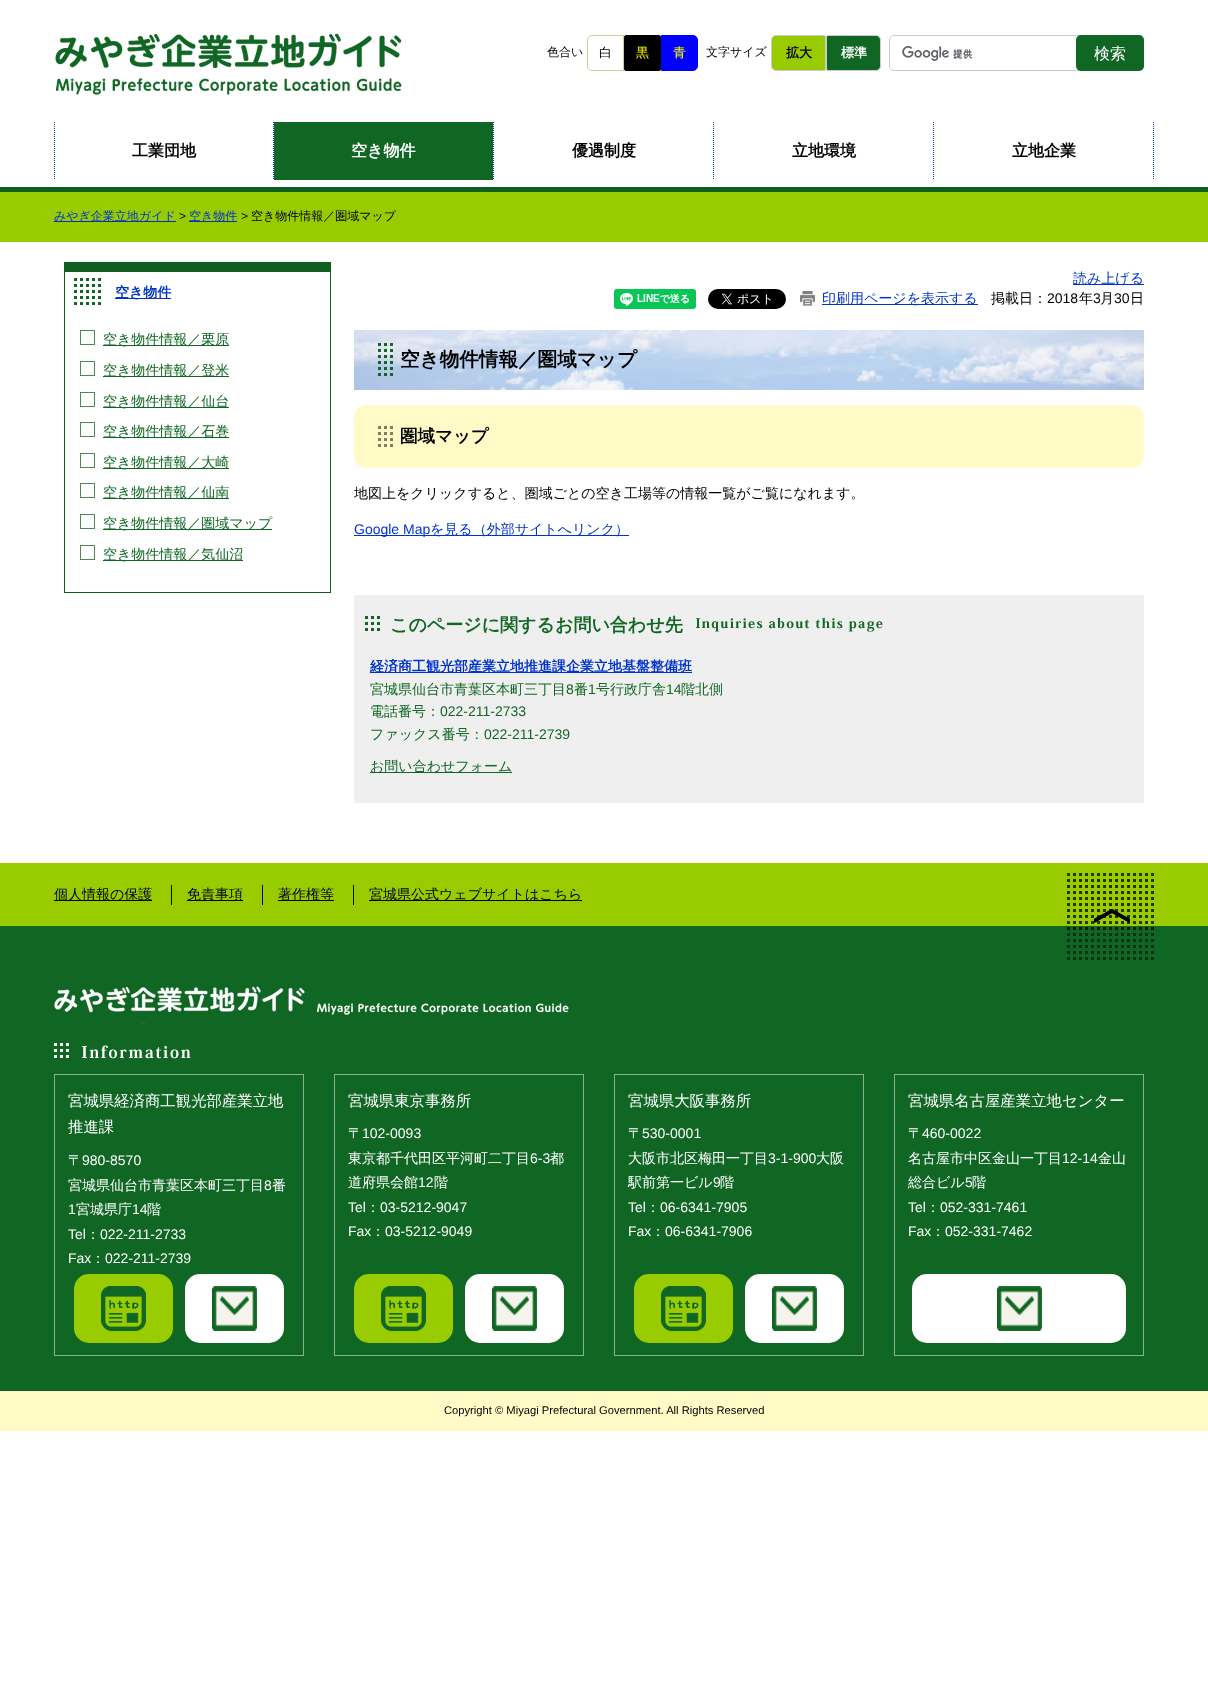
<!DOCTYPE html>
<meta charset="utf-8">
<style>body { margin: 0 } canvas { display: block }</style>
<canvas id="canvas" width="1208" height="1683"></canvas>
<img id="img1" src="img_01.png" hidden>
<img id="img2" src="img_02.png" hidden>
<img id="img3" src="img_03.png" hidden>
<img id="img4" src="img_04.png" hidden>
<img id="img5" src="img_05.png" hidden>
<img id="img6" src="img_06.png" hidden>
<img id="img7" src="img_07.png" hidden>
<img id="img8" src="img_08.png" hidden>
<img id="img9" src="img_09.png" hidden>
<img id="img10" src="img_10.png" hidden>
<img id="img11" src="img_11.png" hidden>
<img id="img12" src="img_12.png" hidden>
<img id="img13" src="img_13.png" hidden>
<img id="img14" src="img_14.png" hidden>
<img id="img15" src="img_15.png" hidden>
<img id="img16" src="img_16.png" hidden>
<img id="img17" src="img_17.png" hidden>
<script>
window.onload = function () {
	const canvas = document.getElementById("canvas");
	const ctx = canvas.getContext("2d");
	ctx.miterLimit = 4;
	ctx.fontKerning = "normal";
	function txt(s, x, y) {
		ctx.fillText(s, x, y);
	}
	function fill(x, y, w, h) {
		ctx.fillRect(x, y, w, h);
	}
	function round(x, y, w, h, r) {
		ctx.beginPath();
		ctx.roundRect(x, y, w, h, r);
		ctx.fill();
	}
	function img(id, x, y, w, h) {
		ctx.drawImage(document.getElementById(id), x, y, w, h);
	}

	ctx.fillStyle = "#FFFFFF";
	fill(0, 0, 1208, 1683);
	img("img1", 55, 33, 351, 62);
	ctx.beginPath();
	ctx.roundRect(587.5, 35.5, 36, 35, [4.5, 0, 0, 4.5]);
	ctx.strokeStyle = "#D3CA99";
	ctx.stroke();
	ctx.fillStyle = "#000000";
	ctx.beginPath();
	ctx.roundRect(624.5, 35.5, 36, 35, 1.5);
	ctx.fill();
	ctx.strokeStyle = "#000000";
	ctx.stroke();
	ctx.fillStyle = "#0000FF";
	ctx.beginPath();
	ctx.roundRect(661.5, 35.5, 36, 35, [0, 4.5, 4.5, 0]);
	ctx.fill();
	ctx.strokeStyle = "#0000FF";
	ctx.stroke();
	ctx.fillStyle = "#99CC00";
	ctx.beginPath();
	ctx.roundRect(771.5, 35.5, 54, 35, [4.5, 1.5, 1.5, 4.5]);
	ctx.fill();
	ctx.strokeStyle = "#CCCCCC";
	ctx.stroke();
	ctx.fillStyle = "#106723";
	ctx.beginPath();
	ctx.roundRect(826.5, 35.5, 54, 35, [1.5, 4.5, 4.5, 1.5]);
	ctx.fill();
	ctx.stroke();
	img("img2", 902, 46, 70, 15);
	ctx.beginPath();
	ctx.roundRect(889.5, 35.5, 254, 35, 4.5);
	ctx.stroke();
	ctx.fillStyle = "#106724";
	round(1076, 35, 68, 36, 5);
	ctx.beginPath();
	ctx.moveTo(273.5, 122);
	ctx.lineTo(273.5, 180);
	ctx.strokeStyle = "#123DA3";
	ctx.setLineDash([1, 1]);
	ctx.stroke();
	ctx.beginPath();
	ctx.moveTo(54.5, 122);
	ctx.lineTo(54.5, 180);
	ctx.stroke();
	ctx.beginPath();
	ctx.moveTo(493.5, 122);
	ctx.lineTo(493.5, 180);
	ctx.stroke();
	fill(274, 122, 219, 58);
	ctx.beginPath();
	ctx.moveTo(713.5, 122);
	ctx.lineTo(713.5, 180);
	ctx.stroke();
	ctx.beginPath();
	ctx.moveTo(933.5, 122);
	ctx.lineTo(933.5, 180);
	ctx.stroke();
	ctx.beginPath();
	ctx.moveTo(1153.5, 122);
	ctx.lineTo(1153.5, 180);
	ctx.stroke();
	ctx.fillStyle = "#99CC00";
	fill(0, 192, 1208, 50);
	ctx.fillStyle = "#0E5E20";
	fill(0, 187, 1208, 5);
	ctx.fillStyle = "#0033CC";
	fill(54, 221, 122, 1);
	fill(189, 221, 48, 1);
	ctx.fillStyle = "#0E5E20";
	fill(65, 262, 265, 10);
	fill(330, 262, 1, 331);
	fill(64, 592, 267, 1);
	fill(64, 262, 1, 331);
	img("img3", 74, 278, 27, 27);
	ctx.fillStyle = "#0033CC";
	fill(115, 298, 56, 1);
	img("img4", 80, 330, 15, 15);
	ctx.fillStyle = "#106723";
	fill(103, 345, 126, 1);
	img("img4", 80, 361, 15, 15);
	fill(103, 376, 126, 1);
	img("img4", 80, 392, 15, 15);
	fill(103, 407, 126, 1);
	img("img4", 80, 422, 15, 15);
	fill(103, 437, 126, 1);
	img("img4", 80, 453, 15, 15);
	fill(103, 468, 126, 1);
	img("img4", 80, 483, 15, 15);
	fill(103, 498, 126, 1);
	img("img4", 80, 514, 15, 15);
	fill(103, 529, 169, 1);
	img("img4", 80, 545, 15, 15);
	fill(103, 560, 140, 1);
	ctx.fillStyle = "#0033CC";
	fill(1073, 284, 71, 1);
	img("img5", 614, 289, 82, 20);
	img("img6", 708, 289, 78, 20);
	img("img7", 800, 291, 15, 15);
	fill(822, 304, 156, 1);
	img("img8", 354, 330, 790, 60);
	ctx.fillStyle = "#FFFAC6";
	round(354, 405, 790, 63, 13);
	img("img9", 378, 426, 15, 21);
	ctx.fillStyle = "#0033CC";
	fill(354, 535, 275, 1);
	ctx.fillStyle = "#EFEFEF";
	fill(354, 595, 790, 208);
	img("img10", 365, 616, 15, 15);
	img("img11", 696, 617, 187, 15);
	ctx.fillStyle = "#0033CC";
	fill(370, 672, 322, 1);
	ctx.fillStyle = "#106723";
	fill(370, 772, 142, 1);
	ctx.fillStyle = "#106724";
	fill(0, 926, 1208, 465);
	ctx.fillStyle = "#99CC00";
	fill(0, 863, 1208, 63);
	img("img12", 1067, 873, 87, 87);
	ctx.fillStyle = "#000000";
	fill(54, 900, 98, 1);
	fill(171, 885, 1, 20);
	fill(187, 900, 56, 1);
	fill(262, 885, 1, 20);
	fill(278, 900, 56, 1);
	fill(353, 885, 1, 20);
	fill(369, 900, 213, 1);
	img("img13", 54, 986, 515, 39);
	img("img14", 54, 1043, 137, 16);
	ctx.strokeStyle = "#87B391";
	ctx.setLineDash([]);
	ctx.strokeRect(54.5, 1074.5, 249, 281);
	ctx.fillStyle = "#99CC00";
	round(74, 1274, 99, 69, 15);
	img("img15", 101, 1286, 45, 45);
	ctx.fillStyle = "#FFFFFF";
	round(185, 1274, 99, 69, 15);
	img("img16", 212, 1286, 45, 45);
	ctx.strokeRect(334.5, 1074.5, 249, 281);
	ctx.fillStyle = "#99CC00";
	round(354, 1274, 99, 69, 15);
	img("img15", 381, 1286, 45, 45);
	ctx.fillStyle = "#FFFFFF";
	round(465, 1274, 99, 69, 15);
	img("img16", 492, 1286, 45, 45);
	ctx.strokeRect(614.5, 1074.5, 249, 281);
	ctx.fillStyle = "#99CC00";
	round(634, 1274, 99, 69, 15);
	img("img15", 661, 1286, 45, 45);
	ctx.fillStyle = "#FFFFFF";
	round(745, 1274, 99, 69, 15);
	img("img17", 772, 1286, 45, 45);
	ctx.strokeRect(894.5, 1074.5, 249, 281);
	round(912, 1274, 214, 69, 15);
	img("img16", 997, 1286, 45, 45);
	ctx.fillStyle = "#FFFAC6";
	fill(0, 1391, 1208, 40);
	ctx.font = "500 12px WenQuanYi Zen Hei";
	ctx.fillStyle = "#000000";
	txt("色合い", 547, 56);
	ctx.font = "500 13px WenQuanYi Zen Hei";
	txt("白", 599, 57);
	ctx.fillStyle = "#FFFF00";
	txt("黒", 636, 57);
	txt("青", 673, 57);
	ctx.font = "500 12px WenQuanYi Zen Hei";
	ctx.fillStyle = "#000000";
	txt("文字サイズ", 706, 56);
	ctx.font = "bold 13px WenQuanYi Zen Hei";
	txt("拡大", 786, 57);
	ctx.fillStyle = "#FFFFFF";
	txt("標準", 841, 57);
	ctx.font = "500 16px WenQuanYi Zen Hei";
	txt("検索", 1094, 59);
	ctx.font = "bold 16px WenQuanYi Zen Hei";
	ctx.fillStyle = "#000000";
	txt("工業団地", 132, 156);
	ctx.fillStyle = "#FFFFFF";
	txt("空き物件", 351, 156);
	ctx.fillStyle = "#000000";
	txt("優遇制度", 572, 156);
	txt("立地環境", 792, 156);
	txt("立地企業", 1012, 156);
	ctx.font = "500 12px WenQuanYi Zen Hei";
	ctx.fillStyle = "#0033CC";
	txt("みやぎ企業立地ガイド", 54, 220);
	ctx.font = "12px Liberation Sans";
	ctx.fillStyle = "#000000";
	txt(">", 179, 220);
	ctx.font = "500 12px WenQuanYi Zen Hei";
	ctx.fillStyle = "#0033CC";
	txt("空き物件", 189, 220);
	ctx.font = "12px Liberation Sans";
	ctx.fillStyle = "#000000";
	txt(">", 241, 220);
	ctx.font = "500 12px WenQuanYi Zen Hei";
	txt("空き物件情報／圏域マップ", 251, 220);
	ctx.font = "bold 14px WenQuanYi Zen Hei";
	ctx.fillStyle = "#0033CC";
	txt("空き物件", 115, 297);
	ctx.font = "500 14px WenQuanYi Zen Hei";
	ctx.fillStyle = "#106723";
	txt("空き物件情報／栗原", 103, 344);
	txt("空き物件情報／登米", 103, 375);
	txt("空き物件情報／仙台", 103, 406);
	txt("空き物件情報／石巻", 103, 436);
	txt("空き物件情報／大崎", 103, 467);
	txt("空き物件情報／仙南", 103, 497);
	txt("空き物件情報／圏域マップ", 103, 528);
	txt("空き物件情報／気仙沼", 103, 559);
	ctx.fillStyle = "#0033CC";
	txt("読み上げる", 1073, 283);
	txt("印刷用ページを表示する", 822, 303);
	ctx.fillStyle = "#000000";
	txt("掲載日：", 991, 303);
	ctx.font = "14px Liberation Sans";
	txt("2018", 1047, 303);
	ctx.font = "500 14px WenQuanYi Zen Hei";
	txt("年", 1079, 303);
	ctx.font = "14px Liberation Sans";
	txt("3", 1093, 303);
	ctx.font = "500 14px WenQuanYi Zen Hei";
	txt("月", 1100, 303);
	ctx.font = "14px Liberation Sans";
	txt("30", 1114, 303);
	ctx.font = "500 14px WenQuanYi Zen Hei";
	txt("日", 1130, 303);
	ctx.font = "bold 19.6px WenQuanYi Zen Hei";
	txt("空き物件情報／圏域マップ", 400, 366);
	ctx.font = "bold 17.5px WenQuanYi Zen Hei";
	txt("圏域マップ", 400, 442);
	ctx.font = "500 14px WenQuanYi Zen Hei";
	txt("地図上をクリックすると、圏域ごとの空き工場等の情報一覧がご覧になれます。", 354, 498);
	ctx.font = "14px Liberation Sans";
	ctx.fillStyle = "#0033CC";
	txt("Google Map", 354, 534);
	ctx.font = "500 14px WenQuanYi Zen Hei";
	txt("を見る（外部サイトへリンク）", 430, 534);
	ctx.font = "bold 18px WenQuanYi Zen Hei";
	ctx.fillStyle = "#106723";
	txt("このページに関するお問い合わせ先", 390, 631);
	ctx.font = "bold 14px WenQuanYi Zen Hei";
	ctx.fillStyle = "#0033CC";
	txt("経済商工観光部産業立地推進課企業立地基盤整備班", 370, 671);
	ctx.font = "500 14px WenQuanYi Zen Hei";
	ctx.fillStyle = "#106723";
	txt("宮城県仙台市青葉区本町三丁目", 370, 694);
	ctx.font = "14px Liberation Sans";
	txt("8", 566, 694);
	ctx.font = "500 14px WenQuanYi Zen Hei";
	txt("番", 574, 694);
	ctx.font = "14px Liberation Sans";
	txt("1", 588, 694);
	ctx.font = "500 14px WenQuanYi Zen Hei";
	txt("号行政庁舎", 596, 694);
	ctx.font = "14px Liberation Sans";
	txt("14", 666, 694);
	ctx.font = "500 14px WenQuanYi Zen Hei";
	txt("階北側", 681, 694);
	txt("電話番号：", 370, 716);
	ctx.font = "14px Liberation Sans";
	txt("022-211-2733", 440, 716);
	ctx.font = "500 14px WenQuanYi Zen Hei";
	txt("ファックス番号：", 370, 739);
	ctx.font = "14px Liberation Sans";
	txt("022-211-2739", 484, 739);
	ctx.font = "500 14px WenQuanYi Zen Hei";
	txt("お問い合わせフォーム", 370, 771);
	ctx.fillStyle = "#000000";
	txt("個人情報の保護", 54, 899);
	txt("免責事項", 187, 899);
	txt("著作権等", 278, 899);
	txt("宮城県公式ウェブサイトはこちら", 369, 899);
	ctx.font = "500 15.4px WenQuanYi Zen Hei";
	ctx.fillStyle = "#FFFFFF";
	txt("宮城県経済商工観光部産業立地", 68, 1106);
	txt("推進課", 68, 1132);
	ctx.font = "500 14px WenQuanYi Zen Hei";
	txt("〒", 68, 1165);
	ctx.font = "14px Liberation Sans";
	txt("980-8570", 82, 1165);
	ctx.font = "500 14px WenQuanYi Zen Hei";
	txt("宮城県仙台市青葉区本町三丁目", 68, 1190);
	ctx.font = "14px Liberation Sans";
	txt("8", 264, 1190);
	ctx.font = "500 14px WenQuanYi Zen Hei";
	txt("番", 272, 1190);
	ctx.font = "14px Liberation Sans";
	txt("1", 68, 1214);
	ctx.font = "500 14px WenQuanYi Zen Hei";
	txt("宮城県庁", 76, 1214);
	ctx.font = "14px Liberation Sans";
	txt("14", 132, 1214);
	ctx.font = "500 14px WenQuanYi Zen Hei";
	txt("階", 147, 1214);
	ctx.font = "14px Liberation Sans";
	txt("Tel", 68, 1239);
	ctx.font = "500 14px WenQuanYi Zen Hei";
	txt("：", 86, 1239);
	ctx.font = "14px Liberation Sans";
	txt("022-211-2733", 100, 1239);
	txt("Fax", 68, 1263);
	ctx.font = "500 14px WenQuanYi Zen Hei";
	txt("：", 91, 1263);
	ctx.font = "14px Liberation Sans";
	txt("022-211-2739", 105, 1263);
	ctx.font = "500 15.4px WenQuanYi Zen Hei";
	txt("宮城県東京事務所", 348, 1106);
	ctx.font = "500 14px WenQuanYi Zen Hei";
	txt("〒", 348, 1138);
	ctx.font = "14px Liberation Sans";
	txt("102-0093", 362, 1138);
	ctx.font = "500 14px WenQuanYi Zen Hei";
	txt("東京都千代田区平河町二丁目", 348, 1163);
	ctx.font = "14px Liberation Sans";
	txt("6-3", 530, 1163);
	ctx.font = "500 14px WenQuanYi Zen Hei";
	txt("都", 550, 1163);
	txt("道府県会館", 348, 1187);
	ctx.font = "14px Liberation Sans";
	txt("12", 418, 1187);
	ctx.font = "500 14px WenQuanYi Zen Hei";
	txt("階", 434, 1187);
	ctx.font = "14px Liberation Sans";
	txt("Tel", 348, 1212);
	ctx.font = "500 14px WenQuanYi Zen Hei";
	txt("：", 366, 1212);
	ctx.font = "14px Liberation Sans";
	txt("03-5212-9047", 380, 1212);
	txt("Fax", 348, 1236);
	ctx.font = "500 14px WenQuanYi Zen Hei";
	txt("：", 371, 1236);
	ctx.font = "14px Liberation Sans";
	txt("03-5212-9049", 385, 1236);
	ctx.font = "500 15.4px WenQuanYi Zen Hei";
	txt("宮城県大阪事務所", 628, 1106);
	ctx.font = "500 14px WenQuanYi Zen Hei";
	txt("〒", 628, 1138);
	ctx.font = "14px Liberation Sans";
	txt("530-0001", 642, 1138);
	ctx.font = "500 14px WenQuanYi Zen Hei";
	txt("大阪市北区梅田一丁目", 628, 1163);
	ctx.font = "14px Liberation Sans";
	txt("3-1-900", 768, 1163);
	ctx.font = "500 14px WenQuanYi Zen Hei";
	txt("大阪", 816, 1163);
	txt("駅前第一ビル", 628, 1187);
	ctx.font = "14px Liberation Sans";
	txt("9", 713, 1187);
	ctx.font = "500 14px WenQuanYi Zen Hei";
	txt("階", 720, 1187);
	ctx.font = "14px Liberation Sans";
	txt("Tel", 628, 1212);
	ctx.font = "500 14px WenQuanYi Zen Hei";
	txt("：", 646, 1212);
	ctx.font = "14px Liberation Sans";
	txt("06-6341-7905", 660, 1212);
	txt("Fax", 628, 1236);
	ctx.font = "500 14px WenQuanYi Zen Hei";
	txt("：", 651, 1236);
	ctx.font = "14px Liberation Sans";
	txt("06-6341-7906", 665, 1236);
	ctx.font = "500 15.4px WenQuanYi Zen Hei";
	txt("宮城県名古屋産業立地センター", 908, 1106);
	ctx.font = "500 14px WenQuanYi Zen Hei";
	txt("〒", 908, 1138);
	ctx.font = "14px Liberation Sans";
	txt("460-0022", 922, 1138);
	ctx.font = "500 14px WenQuanYi Zen Hei";
	txt("名古屋市中区金山一丁目", 908, 1163);
	ctx.font = "14px Liberation Sans";
	txt("12-14", 1062, 1163);
	ctx.font = "500 14px WenQuanYi Zen Hei";
	txt("金山", 1098, 1163);
	txt("総合ビル", 908, 1187);
	ctx.font = "14px Liberation Sans";
	txt("5", 965, 1187);
	ctx.font = "500 14px WenQuanYi Zen Hei";
	txt("階", 972, 1187);
	ctx.font = "14px Liberation Sans";
	txt("Tel", 908, 1212);
	ctx.font = "500 14px WenQuanYi Zen Hei";
	txt("：", 926, 1212);
	ctx.font = "14px Liberation Sans";
	txt("052-331-7461", 940, 1212);
	txt("Fax", 908, 1236);
	ctx.font = "500 14px WenQuanYi Zen Hei";
	txt("：", 931, 1236);
	ctx.font = "14px Liberation Sans";
	txt("052-331-7462", 945, 1236);
	ctx.font = "11.2px Liberation Sans";
	ctx.fillStyle = "#000000";
	txt("Copyright © Miyagi Prefectural Government. All Rights Reserved", 444, 1414);
};
</script>
